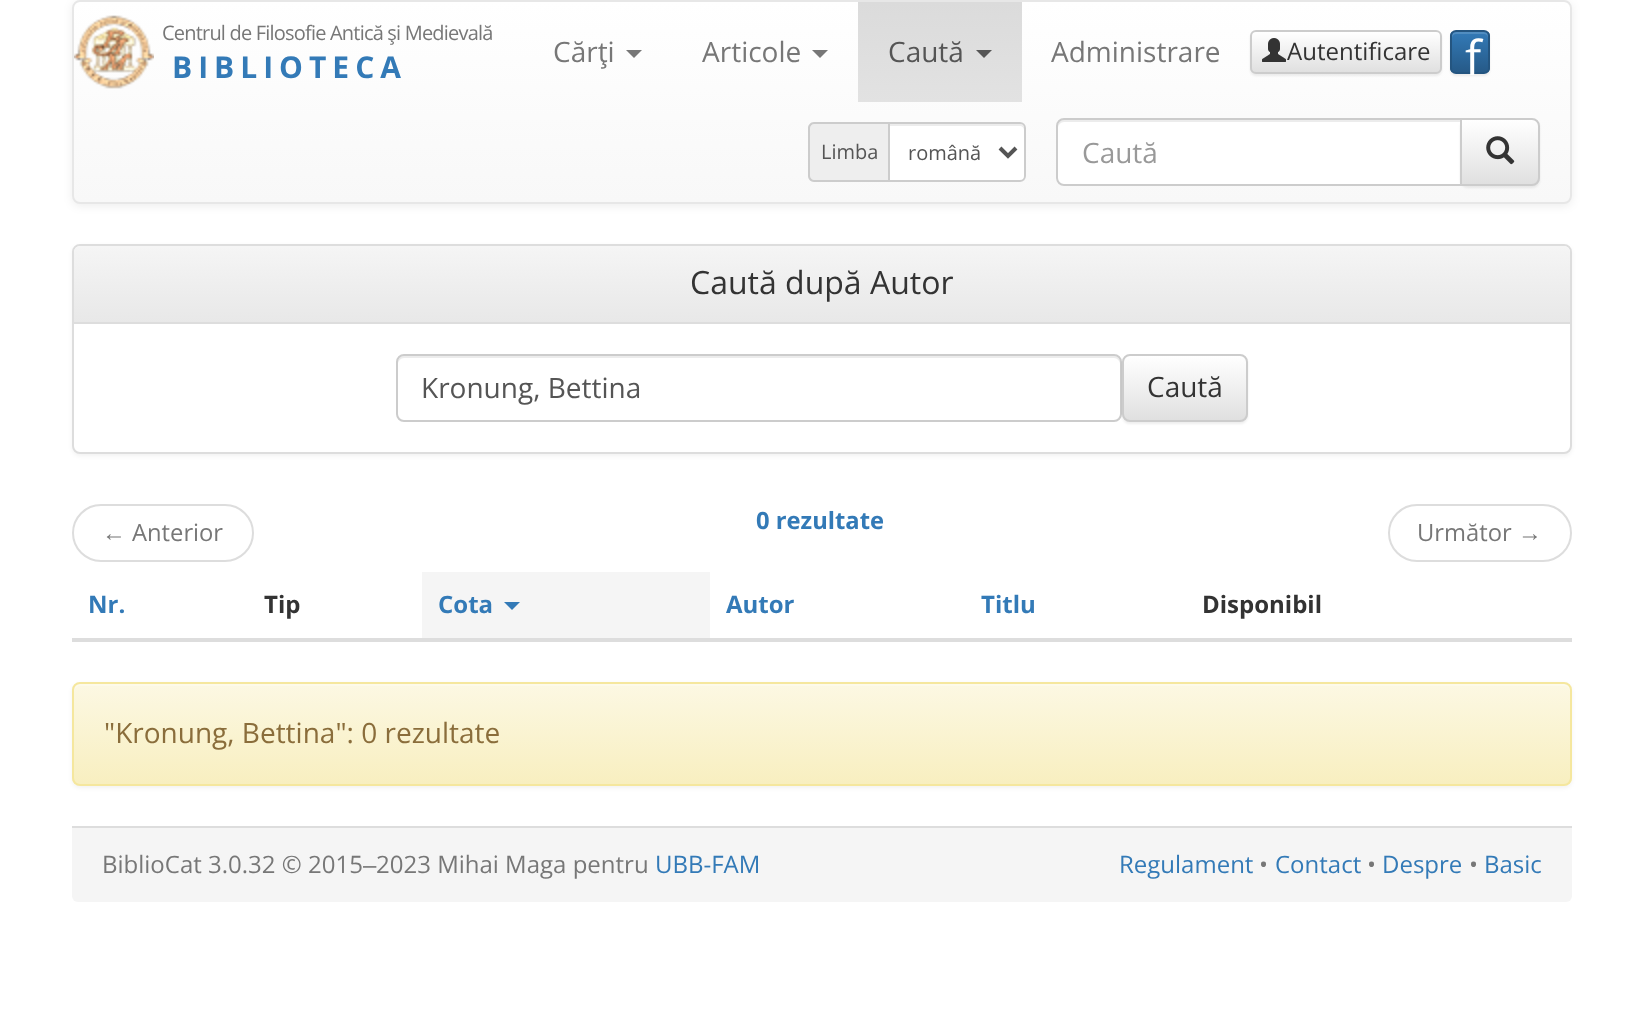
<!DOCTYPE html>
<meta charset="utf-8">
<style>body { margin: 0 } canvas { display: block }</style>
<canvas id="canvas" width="1643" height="1025"></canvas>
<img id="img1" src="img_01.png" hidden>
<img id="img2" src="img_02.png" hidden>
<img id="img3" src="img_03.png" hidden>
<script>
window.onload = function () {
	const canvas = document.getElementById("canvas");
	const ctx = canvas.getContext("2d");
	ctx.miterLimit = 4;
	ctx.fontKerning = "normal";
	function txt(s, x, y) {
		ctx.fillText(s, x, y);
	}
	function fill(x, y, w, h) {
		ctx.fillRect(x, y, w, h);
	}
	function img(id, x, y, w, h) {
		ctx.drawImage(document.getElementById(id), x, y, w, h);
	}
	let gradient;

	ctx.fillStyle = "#FFFFFF";
	fill(0, 0, 1643, 1025);
	ctx.fillStyle = "rgba(0, 0, 0, 0.07)";
	ctx.filter = "blur(5px)";
	ctx.beginPath();
	ctx.roundRect(72, 2, 1500, 204, 8);
	ctx.fill();
	ctx.filter = "none";
	ctx.save();
	ctx.beginPath();
	ctx.roundRect(72, 0, 1500, 204, 8);
	ctx.clip();
	gradient = ctx.createLinearGradient(822, 2, 822, 202);
	gradient.addColorStop(0, "#FFFFFF");
	gradient.addColorStop(1, "#F8F8F8");
	ctx.fillStyle = gradient;
	fill(72, 2, 1500, 200);
	ctx.restore();
	ctx.beginPath();
	ctx.roundRect(73, 1, 1498, 202, 7);
	ctx.strokeStyle = "#E7E7E7";
	ctx.lineWidth = 2;
	ctx.stroke();
	img("img1", 74, 15, 80, 74);
	ctx.fillStyle = "#777777";
	ctx.beginPath();
	ctx.moveTo(626, 50);
	ctx.lineTo(642, 50);
	ctx.lineTo(634, 58);
	ctx.closePath();
	ctx.fill();
	ctx.beginPath();
	ctx.moveTo(812, 50);
	ctx.lineTo(828, 50);
	ctx.lineTo(820, 58);
	ctx.closePath();
	ctx.fill();
	gradient = ctx.createLinearGradient(940, 2, 940, 102);
	gradient.addColorStop(0, "#DBDBDB");
	gradient.addColorStop(1, "#E2E2E2");
	ctx.fillStyle = gradient;
	fill(858, 2, 164, 100);
	ctx.fillStyle = "#555555";
	ctx.beginPath();
	ctx.moveTo(976, 50);
	ctx.lineTo(992, 50);
	ctx.lineTo(984, 58);
	ctx.closePath();
	ctx.fill();
	ctx.fillStyle = "rgba(0, 0, 0, 0.07)";
	ctx.filter = "blur(1px)";
	ctx.beginPath();
	ctx.roundRect(1250, 32, 192, 44, 6);
	ctx.fill();
	ctx.filter = "none";
	ctx.save();
	ctx.beginPath();
	ctx.roundRect(1250, 30, 192, 44, 6);
	ctx.clip();
	gradient = ctx.createLinearGradient(1346, 32, 1346, 72);
	gradient.addColorStop(0, "#FFFFFF");
	gradient.addColorStop(1, "#E0E0E0");
	ctx.fillStyle = gradient;
	fill(1250, 32, 192, 40);
	ctx.restore();
	ctx.beginPath();
	ctx.roundRect(1251, 31, 190, 42, 5);
	ctx.strokeStyle = "#CCCCCC";
	ctx.stroke();
	img("img2", 1262, 38, 24, 24);
	ctx.filter = "blur(1px)";
	ctx.beginPath();
	ctx.roundRect(1450, 32, 40, 44, 6);
	ctx.fill();
	ctx.filter = "none";
	ctx.save();
	ctx.beginPath();
	ctx.roundRect(1450, 30, 40, 44, 6);
	ctx.clip();
	gradient = ctx.createLinearGradient(1470, 32, 1470, 72);
	gradient.addColorStop(0, "#337AB7");
	gradient.addColorStop(1, "#265A88");
	ctx.fillStyle = gradient;
	fill(1450, 32, 40, 40);
	ctx.restore();
	ctx.fillStyle = "rgba(255, 255, 255, 0.15)";
	ctx.beginPath();
	ctx.moveTo(1456, 34);
	ctx.lineTo(1484, 34);
	ctx.bezierCurveTo(1486, 34, 1488, 36, 1488, 38);
	ctx.bezierCurveTo(1488, 31.5, 1485.5, 32, 1479.5, 32);
	ctx.lineTo(1460.5, 32);
	ctx.bezierCurveTo(1454.5, 32, 1452, 31.5, 1452, 38);
	ctx.bezierCurveTo(1452, 36, 1454, 34, 1456, 34);
	ctx.closePath();
	ctx.fill();
	ctx.beginPath();
	ctx.roundRect(1451, 31, 38, 42, 5);
	ctx.strokeStyle = "#245580";
	ctx.stroke();
	ctx.fillStyle = "#EEEEEE";
	ctx.beginPath();
	ctx.roundRect(808, 122, 80, 60, [6, 0, 0, 6]);
	ctx.fill();
	ctx.fillStyle = "#CCCCCC";
	ctx.beginPath();
	ctx.moveTo(814, 122);
	ctx.lineTo(888, 122);
	ctx.lineTo(888, 182);
	ctx.lineTo(814, 182);
	ctx.bezierCurveTo(811, 182, 808, 179, 808, 176);
	ctx.lineTo(808, 128);
	ctx.bezierCurveTo(808, 125, 811, 122, 814, 122);
	ctx.closePath();
	ctx.moveTo(814, 124);
	ctx.lineTo(888, 124);
	ctx.lineTo(888, 180);
	ctx.lineTo(814, 180);
	ctx.bezierCurveTo(812, 180, 810, 178, 810, 176);
	ctx.lineTo(810, 128);
	ctx.bezierCurveTo(810, 126, 812, 124, 814, 124);
	ctx.closePath();
	ctx.fill("evenodd");
	ctx.fillStyle = "#FFFFFF";
	ctx.beginPath();
	ctx.roundRect(888, 122, 138, 60, [0, 6, 6, 0]);
	ctx.fill();
	ctx.fillStyle = "#ECECEC";
	ctx.beginPath();
	ctx.moveTo(890, 126);
	ctx.lineTo(1020, 126);
	ctx.bezierCurveTo(1022, 126, 1024, 128, 1024, 130);
	ctx.lineTo(1024, 128);
	ctx.bezierCurveTo(1024, 126, 1022, 124, 1020, 124);
	ctx.lineTo(890, 124);
	ctx.closePath();
	ctx.fill();
	ctx.beginPath();
	ctx.roundRect(889, 123, 136, 58, [0, 5, 5, 0]);
	ctx.strokeStyle = "#CCCCCC";
	ctx.stroke();
	ctx.beginPath();
	ctx.moveTo(1000, 148);
	ctx.lineTo(1008, 156);
	ctx.lineTo(1016, 148);
	ctx.strokeStyle = "#555555";
	ctx.lineWidth = 4;
	ctx.stroke();
	ctx.fillStyle = "#FFFFFF";
	ctx.beginPath();
	ctx.roundRect(1056, 118, 406, 68, [8, 0, 0, 8]);
	ctx.fill();
	ctx.fillStyle = "#ECECEC";
	ctx.beginPath();
	ctx.moveTo(1064, 122);
	ctx.lineTo(1460, 122);
	ctx.lineTo(1460, 120);
	ctx.lineTo(1064, 120);
	ctx.bezierCurveTo(1059, 120, 1058, 124, 1058, 128);
	ctx.bezierCurveTo(1058, 125, 1061, 122, 1064, 122);
	ctx.closePath();
	ctx.fill();
	ctx.beginPath();
	ctx.roundRect(1057, 119, 404, 66, [7, 0, 0, 7]);
	ctx.strokeStyle = "#CCCCCC";
	ctx.lineWidth = 2;
	ctx.stroke();
	ctx.fillStyle = "rgba(0, 0, 0, 0.07)";
	ctx.filter = "blur(1px)";
	ctx.beginPath();
	ctx.roundRect(1460, 120, 80, 68, 8);
	ctx.fill();
	ctx.filter = "none";
	ctx.save();
	ctx.beginPath();
	ctx.roundRect(1460, 118, 80, 68, [0, 8, 8, 0]);
	ctx.clip();
	gradient = ctx.createLinearGradient(1500, 120, 1500, 184);
	gradient.addColorStop(0, "#FFFFFF");
	gradient.addColorStop(1, "#E0E0E0");
	ctx.fillStyle = gradient;
	fill(1462, 120, 78, 64);
	ctx.restore();
	ctx.beginPath();
	ctx.roundRect(1461, 119, 78, 66, [0, 7, 7, 0]);
	ctx.stroke();
	img("img3", 1486, 136, 29, 29);
	ctx.fillStyle = "rgba(0, 0, 0, 0.05)";
	ctx.filter = "blur(2px)";
	ctx.beginPath();
	ctx.roundRect(72, 246, 1500, 210, 8);
	ctx.fill();
	ctx.filter = "none";
	ctx.fillStyle = "#FFFFFF";
	ctx.beginPath();
	ctx.roundRect(73, 245, 1498, 208, 7);
	ctx.fill();
	ctx.strokeStyle = "#DDDDDD";
	ctx.stroke();
	gradient = ctx.createLinearGradient(822, 246, 822, 322);
	gradient.addColorStop(0, "#F5F5F5");
	gradient.addColorStop(1, "#E8E8E8");
	ctx.fillStyle = gradient;
	ctx.beginPath();
	ctx.roundRect(74, 246, 1496, 76, [6, 6, 0, 0]);
	ctx.fill();
	ctx.fillStyle = "#DDDDDD";
	fill(74, 322, 1496, 2);
	ctx.fillStyle = "#ECECEC";
	ctx.beginPath();
	ctx.moveTo(404, 358);
	ctx.lineTo(1114, 358);
	ctx.bezierCurveTo(1117, 358, 1120, 361, 1120, 364);
	ctx.lineTo(1120, 362);
	ctx.bezierCurveTo(1120, 359, 1117, 356, 1114, 356);
	ctx.lineTo(404, 356);
	ctx.bezierCurveTo(401, 356, 398, 359, 398, 362);
	ctx.lineTo(398, 364);
	ctx.bezierCurveTo(398, 361, 401, 358, 404, 358);
	ctx.closePath();
	ctx.fill();
	ctx.beginPath();
	ctx.roundRect(397, 355, 724, 66, 7);
	ctx.strokeStyle = "#CCCCCC";
	ctx.stroke();
	ctx.fillStyle = "rgba(0, 0, 0, 0.07)";
	ctx.filter = "blur(1px)";
	ctx.beginPath();
	ctx.roundRect(1122, 356, 126, 68, 8);
	ctx.fill();
	ctx.filter = "none";
	ctx.save();
	ctx.beginPath();
	ctx.roundRect(1122, 354, 126, 68, 8);
	ctx.clip();
	gradient = ctx.createLinearGradient(1185, 356, 1185, 420);
	gradient.addColorStop(0, "#FFFFFF");
	gradient.addColorStop(1, "#E0E0E0");
	ctx.fillStyle = gradient;
	fill(1122, 356, 126, 64);
	ctx.restore();
	ctx.beginPath();
	ctx.roundRect(1123, 355, 124, 66, 7);
	ctx.stroke();
	ctx.beginPath();
	ctx.roundRect(73, 505, 180, 56, 28);
	ctx.strokeStyle = "#DDDDDD";
	ctx.stroke();
	ctx.beginPath();
	ctx.roundRect(1389, 505, 182, 56, 28);
	ctx.stroke();
	ctx.fillStyle = "#F5F5F5";
	fill(422, 572, 288, 66);
	ctx.fillStyle = "#337AB7";
	ctx.beginPath();
	ctx.moveTo(504, 602);
	ctx.lineTo(520, 602);
	ctx.lineTo(512, 610);
	ctx.closePath();
	ctx.fill();
	ctx.fillStyle = "#DDDDDD";
	fill(72, 638, 1500, 4);
	ctx.fillStyle = "rgba(0, 0, 0, 0.05)";
	ctx.filter = "blur(2px)";
	ctx.beginPath();
	ctx.roundRect(72, 684, 1500, 104, 8);
	ctx.fill();
	ctx.filter = "none";
	ctx.save();
	ctx.beginPath();
	ctx.roundRect(72, 682, 1500, 104, 8);
	ctx.clip();
	gradient = ctx.createLinearGradient(822, 684, 822, 784);
	gradient.addColorStop(0, "#FCF8E3");
	gradient.addColorStop(1, "#F8EFC0");
	ctx.fillStyle = gradient;
	fill(72, 684, 1500, 100);
	ctx.restore();
	ctx.fillStyle = "#FDFAEA";
	ctx.beginPath();
	ctx.moveTo(80, 686);
	ctx.lineTo(1564, 686);
	ctx.bezierCurveTo(1567, 686, 1570, 689, 1570, 692);
	ctx.bezierCurveTo(1570, 688, 1569, 684, 1564, 684);
	ctx.lineTo(80, 684);
	ctx.bezierCurveTo(75, 684, 74, 688, 74, 692);
	ctx.bezierCurveTo(74, 689, 77, 686, 80, 686);
	ctx.closePath();
	ctx.fill();
	ctx.beginPath();
	ctx.roundRect(73, 683, 1498, 102, 7);
	ctx.strokeStyle = "#F5E79E";
	ctx.stroke();
	ctx.fillStyle = "#F5F5F5";
	ctx.beginPath();
	ctx.roundRect(72, 826, 1500, 76, [0, 0, 6, 6]);
	ctx.fill();
	ctx.fillStyle = "#DDDDDD";
	fill(72, 826, 1500, 2);
	ctx.letterSpacing = "-0.8px";
	ctx.font = "20px Open Sans";
	ctx.fillStyle = "#777777";
	txt("Centrul de Filosofie Antică şi Medievală", 162, 40);
	ctx.letterSpacing = "6px";
	ctx.font = "bold 30px Open Sans";
	ctx.fillStyle = "#337AB7";
	txt("BIBLIOTECA", 172, 78);
	ctx.letterSpacing = "0px";
	ctx.font = "28px Open Sans";
	ctx.fillStyle = "#777777";
	txt("Cărţi", 553, 62);
	txt("Articole", 702, 62);
	ctx.fillStyle = "#555555";
	txt("Caută", 888, 62);
	ctx.fillStyle = "#777777";
	txt("Administrare", 1051, 62);
	ctx.font = "24px Open Sans";
	ctx.fillStyle = "#333333";
	txt("Autentificare", 1287, 60);
	ctx.font = "48px Open Sans";
	ctx.fillStyle = "#FFFFFF";
	txt("f", 1465, 75);
	ctx.font = "20px Open Sans";
	ctx.fillStyle = "#555555";
	txt("Limba", 821, 159);
	txt("română", 908, 160);
	ctx.font = "28px Open Sans";
	ctx.fillStyle = "#999999";
	txt("Caută", 1082, 163);
	ctx.font = "32px Open Sans";
	ctx.fillStyle = "#333333";
	txt("Caută după Autor", 690, 294);
	ctx.font = "28px Open Sans";
	ctx.fillStyle = "#555555";
	txt("Kronung, Bettina", 421, 398);
	ctx.fillStyle = "#333333";
	txt("Caută", 1147, 397);
	ctx.font = "bold 23.75px Open Sans";
	ctx.fillStyle = "#337AB7";
	txt("0 rezultate", 756, 529);
	ctx.font = "23.75px Liberation Sans";
	ctx.fillStyle = "#777777";
	txt("←", 102, 541);
	ctx.font = "23.75px Open Sans";
	txt("Anterior", 132, 541);
	txt("Următor", 1417, 541);
	ctx.font = "23.75px Liberation Sans";
	txt("→", 1518, 541);
	ctx.font = "bold 24px Open Sans";
	ctx.fillStyle = "#337AB7";
	txt("Nr.", 88, 613);
	ctx.fillStyle = "#333333";
	txt("Tip", 264, 613);
	ctx.fillStyle = "#337AB7";
	txt("Cota", 438, 613);
	txt("Autor", 726, 613);
	txt("Titlu", 981, 613);
	ctx.fillStyle = "#333333";
	txt("Disponibil", 1202, 613);
	ctx.font = "28px Open Sans";
	ctx.fillStyle = "#8A6D3B";
	txt("\"Kronung, Bettina\": 0 rezultate", 104, 743);
	ctx.font = "24px Open Sans";
	ctx.fillStyle = "#777777";
	txt("BiblioCat 3.0.32 © 2015", 102, 873);
	ctx.font = "24px Liberation Sans";
	txt("‒", 363, 873);
	ctx.font = "24px Open Sans";
	txt("2023 Mihai Maga pentru", 376, 873);
	ctx.fillStyle = "#337AB7";
	txt("UBB-FAM", 655, 873);
	txt("Regulament", 1119, 873);
	ctx.fillStyle = "#777777";
	txt("•", 1259, 873);
	ctx.fillStyle = "#337AB7";
	txt("Contact", 1275, 873);
	ctx.fillStyle = "#777777";
	txt("•", 1367, 873);
	ctx.fillStyle = "#337AB7";
	txt("Despre", 1382, 873);
	ctx.fillStyle = "#777777";
	txt("•", 1469, 873);
	ctx.fillStyle = "#337AB7";
	txt("Basic", 1484, 873);
};
</script>
